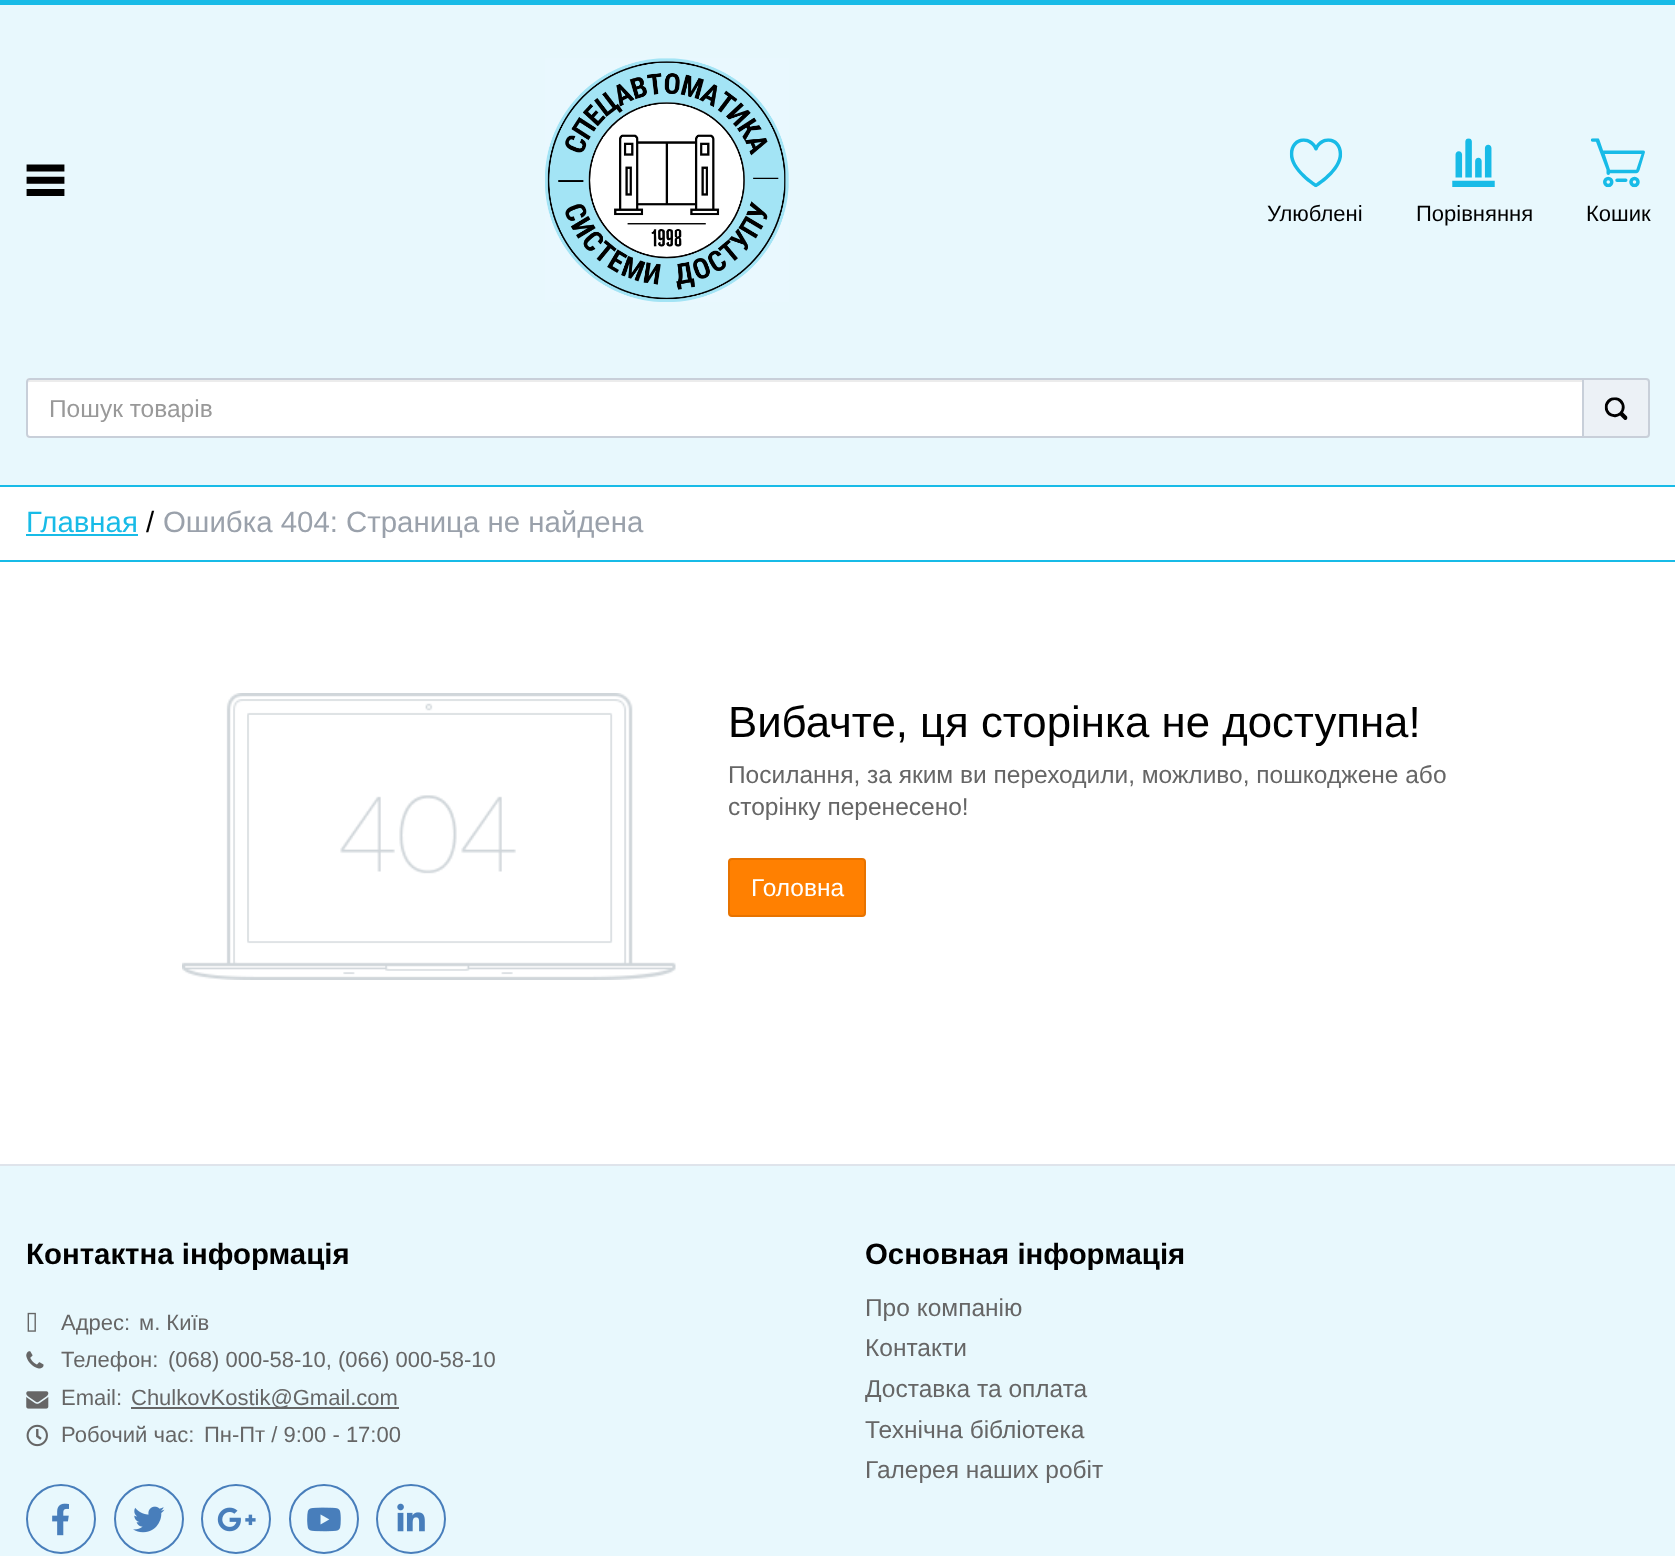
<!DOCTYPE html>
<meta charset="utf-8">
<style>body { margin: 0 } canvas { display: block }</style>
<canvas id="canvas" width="1675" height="1556"></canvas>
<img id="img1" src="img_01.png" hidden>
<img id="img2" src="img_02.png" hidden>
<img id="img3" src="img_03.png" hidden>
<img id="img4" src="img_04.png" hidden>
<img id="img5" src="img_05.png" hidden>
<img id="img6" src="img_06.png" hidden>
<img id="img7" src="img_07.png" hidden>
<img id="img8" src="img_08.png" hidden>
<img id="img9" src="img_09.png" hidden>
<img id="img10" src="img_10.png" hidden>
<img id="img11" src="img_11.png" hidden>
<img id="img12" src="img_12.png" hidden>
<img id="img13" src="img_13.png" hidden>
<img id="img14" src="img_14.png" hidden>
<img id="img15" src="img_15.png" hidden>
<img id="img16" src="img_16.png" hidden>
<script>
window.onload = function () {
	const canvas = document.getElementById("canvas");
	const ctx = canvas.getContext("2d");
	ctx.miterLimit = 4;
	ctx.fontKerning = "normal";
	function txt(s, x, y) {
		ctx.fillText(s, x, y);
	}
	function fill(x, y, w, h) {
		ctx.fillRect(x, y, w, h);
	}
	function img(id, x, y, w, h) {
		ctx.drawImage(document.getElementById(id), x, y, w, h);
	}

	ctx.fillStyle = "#FFFFFF";
	fill(0, 0, 1675, 1556);
	ctx.fillStyle = "#E8F8FD";
	fill(0, 5, 1675, 480);
	ctx.fillStyle = "#18BBE7";
	fill(0, 485, 1675, 2);
	fill(0, 0, 1675, 5);
	img("img1", 26, 164, 39, 32);
	img("img2", 545, 58, 244, 244);
	img("img3", 1289, 138, 54, 50);
	img("img4", 1452, 138, 43, 49);
	img("img5", 1590, 138, 55, 50);
	ctx.fillStyle = "#FFFFFF";
	ctx.beginPath();
	ctx.roundRect(26, 378, 1558, 60, [4, 0, 0, 4]);
	ctx.fill();
	ctx.fillStyle = "#ECECEC";
	ctx.beginPath();
	ctx.moveTo(30, 382);
	ctx.lineTo(1582, 382);
	ctx.lineTo(1582, 380);
	ctx.lineTo(30, 380);
	ctx.bezierCurveTo(29, 380, 28, 381, 28, 382);
	ctx.lineTo(28, 383);
	ctx.bezierCurveTo(28, 382, 29, 382, 30, 382);
	ctx.closePath();
	ctx.fill();
	ctx.beginPath();
	ctx.roundRect(27, 379, 1556, 58, [3, 0, 0, 3]);
	ctx.strokeStyle = "#C8CFD9";
	ctx.lineWidth = 2;
	ctx.stroke();
	ctx.fillStyle = "#ECF1F6";
	ctx.beginPath();
	ctx.roundRect(1583, 379, 66, 58, [0, 3, 3, 0]);
	ctx.fill();
	ctx.stroke();
	img("img6", 1604, 397, 24, 23);
	ctx.fillStyle = "#18BBE7";
	fill(0, 560, 1675, 2);
	fill(26, 534, 112, 2);
	img("img7", 182, 693, 494, 287);
	ctx.fillStyle = "#FF8001";
	ctx.beginPath();
	ctx.roundRect(729, 859, 136, 57, 3);
	ctx.fill();
	ctx.strokeStyle = "#E77300";
	ctx.stroke();
	ctx.fillStyle = "#E8F8FD";
	fill(0, 1166, 1675, 390);
	ctx.fillStyle = "#DFE4EB";
	fill(0, 1164, 1675, 2);
	img("img8", 27, 1312, 9, 20);
	img("img9", 26, 1351, 18, 18);
	img("img10", 26, 1391, 23, 18);
	ctx.fillStyle = "#666666";
	fill(131, 1407, 268, 2);
	img("img11", 26, 1424, 22, 23);
	ctx.beginPath();
	ctx.arc(61, 1519, 34, 0, Math.PI * 2);
	ctx.strokeStyle = "#487EBB";
	ctx.stroke();
	img("img12", 52, 1503, 17, 33);
	ctx.beginPath();
	ctx.arc(149, 1519, 34, 0, Math.PI * 2);
	ctx.stroke();
	img("img13", 133, 1506, 32, 27);
	ctx.beginPath();
	ctx.arc(236, 1519, 34, 0, Math.PI * 2);
	ctx.stroke();
	img("img14", 217, 1507, 39, 25);
	ctx.beginPath();
	ctx.arc(324, 1519, 34, 0, Math.PI * 2);
	ctx.stroke();
	img("img15", 307, 1507, 34, 25);
	ctx.beginPath();
	ctx.arc(411, 1519, 34, 0, Math.PI * 2);
	ctx.stroke();
	img("img16", 397, 1503, 28, 29);
	ctx.font = "22px Liberation Sans";
	ctx.fillStyle = "#000000";
	txt("Улюблені", 1267, 221);
	txt("Порівняння", 1416, 221);
	txt("Кошик", 1586, 221);
	ctx.font = "24.5px Liberation Sans";
	ctx.fillStyle = "#999999";
	txt("Пошук товарів", 49, 417);
	ctx.font = "29.4px Liberation Sans";
	ctx.fillStyle = "#18BBE7";
	txt("Главная", 26, 532);
	ctx.fillStyle = "#000000";
	txt("/", 146, 532);
	ctx.fillStyle = "#9AA1AB";
	txt("Ошибка 404: Страница не найдена", 163, 532);
	ctx.font = "43.75px Liberation Sans";
	ctx.fillStyle = "#000000";
	txt("Вибачте, ця сторінка не доступна!", 728, 737);
	ctx.font = "24.5px Liberation Sans";
	ctx.fillStyle = "#666666";
	txt("Посилання, за яким ви переходили, можливо, пошкоджене або", 728, 783);
	txt("сторінку перенесено!", 728, 815);
	ctx.fillStyle = "#FFFFFF";
	txt("Головна", 751, 896);
	ctx.font = "bold 29.4px Liberation Sans";
	ctx.fillStyle = "#000000";
	txt("Контактна інформація", 26, 1264);
	ctx.font = "22px Liberation Sans";
	ctx.fillStyle = "#666666";
	txt("Адрес:", 61, 1330);
	txt("м. Київ", 139, 1330);
	txt("Телефон:", 61, 1367);
	txt("(068) 000-58-10, (066) 000-58-10", 168, 1367);
	txt("Email:", 61, 1405);
	txt("ChulkovKostik@Gmail.com", 131, 1405);
	txt("Робочий час:", 61, 1442);
	txt("Пн-Пт / 9:00 - 17:00", 204, 1442);
	ctx.font = "bold 29.4px Liberation Sans";
	ctx.fillStyle = "#000000";
	txt("Основная інформація", 865, 1264);
	ctx.font = "24.5px Liberation Sans";
	ctx.fillStyle = "#666666";
	txt("Про компанію", 865, 1316);
	txt("Контакти", 865, 1356);
	txt("Доставка та оплата", 865, 1397);
	txt("Технічна бібліотека", 865, 1438);
	txt("Галерея наших робіт", 865, 1478);
};
</script>
